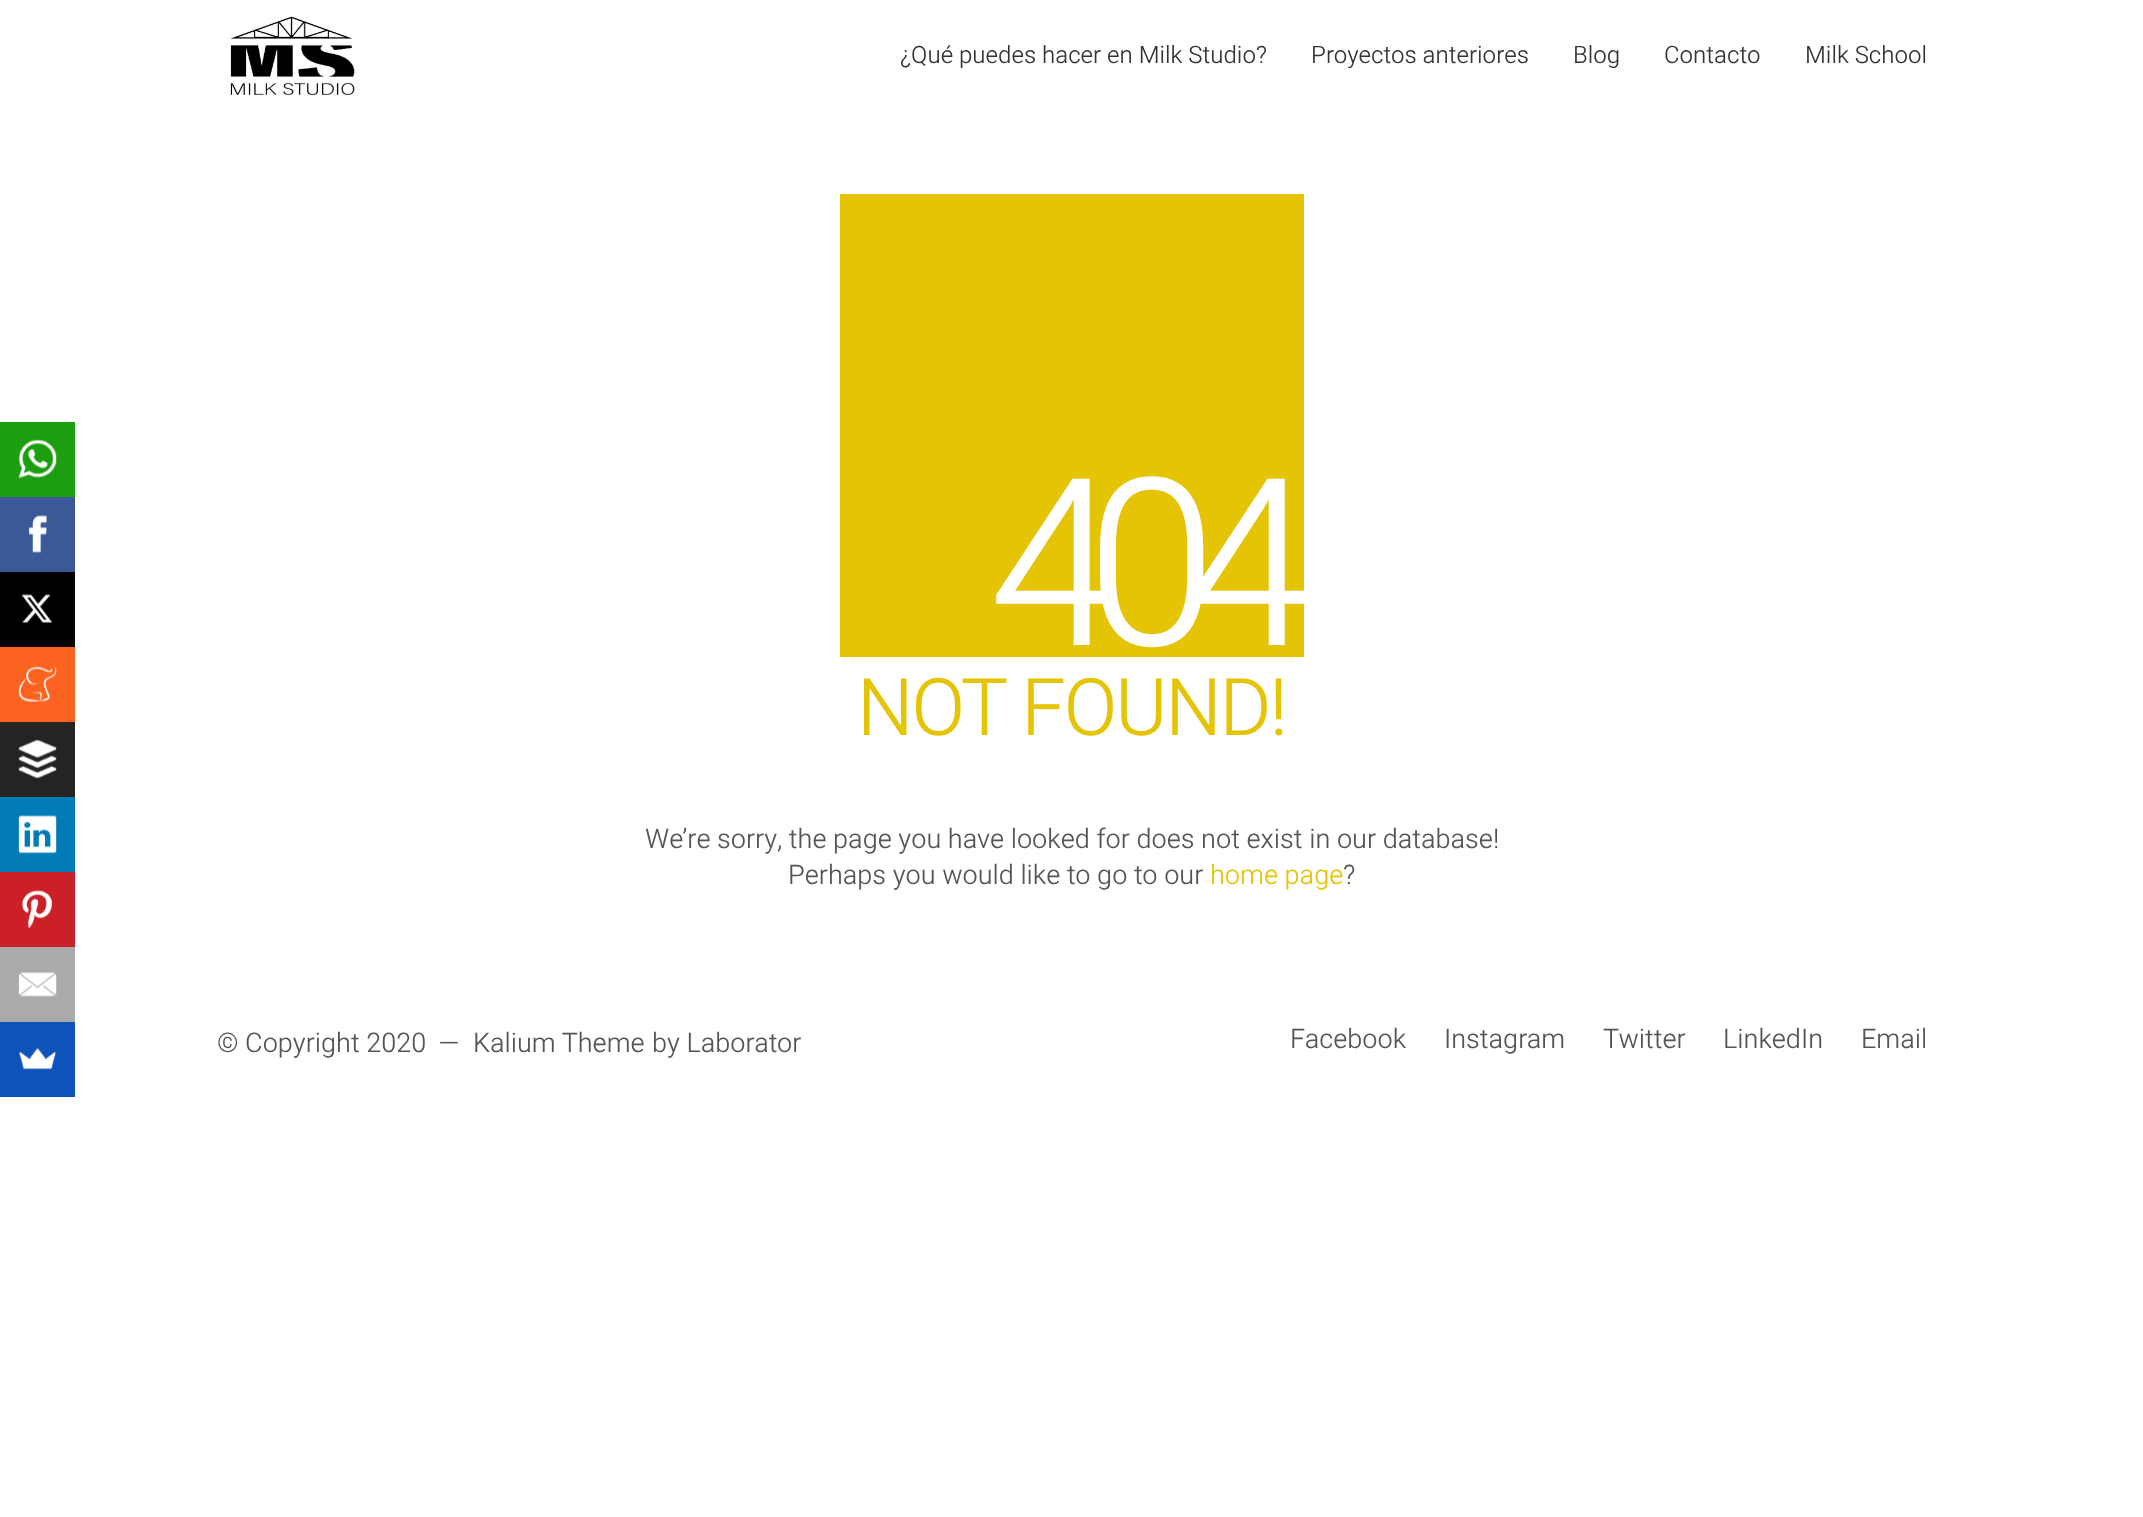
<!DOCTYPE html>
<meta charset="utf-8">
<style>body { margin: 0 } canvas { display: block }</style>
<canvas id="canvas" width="2143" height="1517"></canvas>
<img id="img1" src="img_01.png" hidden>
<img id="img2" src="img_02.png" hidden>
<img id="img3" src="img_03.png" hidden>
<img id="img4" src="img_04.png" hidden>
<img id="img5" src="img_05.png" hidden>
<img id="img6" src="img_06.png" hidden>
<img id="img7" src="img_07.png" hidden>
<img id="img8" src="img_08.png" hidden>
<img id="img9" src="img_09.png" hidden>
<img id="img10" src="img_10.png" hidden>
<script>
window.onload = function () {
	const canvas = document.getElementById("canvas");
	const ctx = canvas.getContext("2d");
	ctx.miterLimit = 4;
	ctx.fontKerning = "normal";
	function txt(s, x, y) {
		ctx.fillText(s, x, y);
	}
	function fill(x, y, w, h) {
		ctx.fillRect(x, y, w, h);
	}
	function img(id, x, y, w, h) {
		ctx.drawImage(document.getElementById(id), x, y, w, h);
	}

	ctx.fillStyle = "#FFFFFF";
	fill(0, 0, 2143, 1517);
	ctx.fillStyle = "#1D9E11";
	fill(0, 422, 75, 75);
	img("img1", 18, 439, 39, 40);
	ctx.fillStyle = "#3B5998";
	fill(0, 497, 75, 75);
	img("img2", 29, 515, 18, 38);
	ctx.fillStyle = "#000000";
	fill(0, 572, 75, 75);
	img("img3", 21, 594, 31, 29);
	ctx.fillStyle = "#FC6320";
	fill(0, 647, 75, 75);
	img("img4", 18, 666, 39, 36);
	ctx.fillStyle = "#242424";
	fill(0, 722, 75, 75);
	img("img5", 18, 739, 39, 40);
	ctx.fillStyle = "#007BB6";
	fill(0, 797, 75, 75);
	img("img6", 18, 815, 39, 39);
	ctx.fillStyle = "#CB2027";
	fill(0, 872, 75, 75);
	img("img7", 22, 890, 30, 39);
	ctx.fillStyle = "#AAAAAA";
	fill(0, 947, 75, 75);
	img("img8", 18, 972, 39, 25);
	ctx.fillStyle = "#0F52BA";
	fill(0, 1022, 75, 75);
	img("img9", 19, 1048, 37, 22);
	img("img10", 230, 16, 125, 80);
	ctx.fillStyle = "#E5C406";
	fill(840, 194, 464, 463);
	ctx.font = "300 24px Heebo";
	ctx.fillStyle = "#333333";
	txt("¿Qué puedes hacer en Milk Studio?", 900, 63);
	txt("Proyectos anteriores", 1311, 63);
	txt("Blog", 1573, 63);
	txt("Contacto", 1664, 63);
	txt("Milk School", 1805, 63);
	ctx.letterSpacing = "-45px";
	ctx.font = "300 234px Heebo";
	ctx.fillStyle = "#FFFFFF";
	txt("4 0 4", 989, 645);
	ctx.letterSpacing = "-2.25px";
	ctx.font = "300 79.5px Heebo";
	ctx.fillStyle = "#E5C406";
	txt("NOT FOUND!", 857, 735);
	ctx.letterSpacing = "0px";
	ctx.font = "300 27px Heebo";
	ctx.fillStyle = "#555555";
	txt("We’re sorry, the page you have looked for does not exist in our database!", 645, 848);
	txt("Perhaps you would like to go to our", 788, 884);
	ctx.fillStyle = "#E5C406";
	txt("home page", 1210, 884);
	ctx.fillStyle = "#555555";
	txt("?", 1343, 884);
	txt("© Copyright 2020  —", 217, 1052);
	txt("Kalium Theme", 473, 1052);
	txt("by Laborator", 652, 1052);
	txt("Facebook", 1290, 1048);
	txt("Instagram", 1444, 1048);
	txt("Twitter", 1603, 1048);
	txt("LinkedIn", 1723, 1048);
	txt("Email", 1861, 1048);
};
</script>
